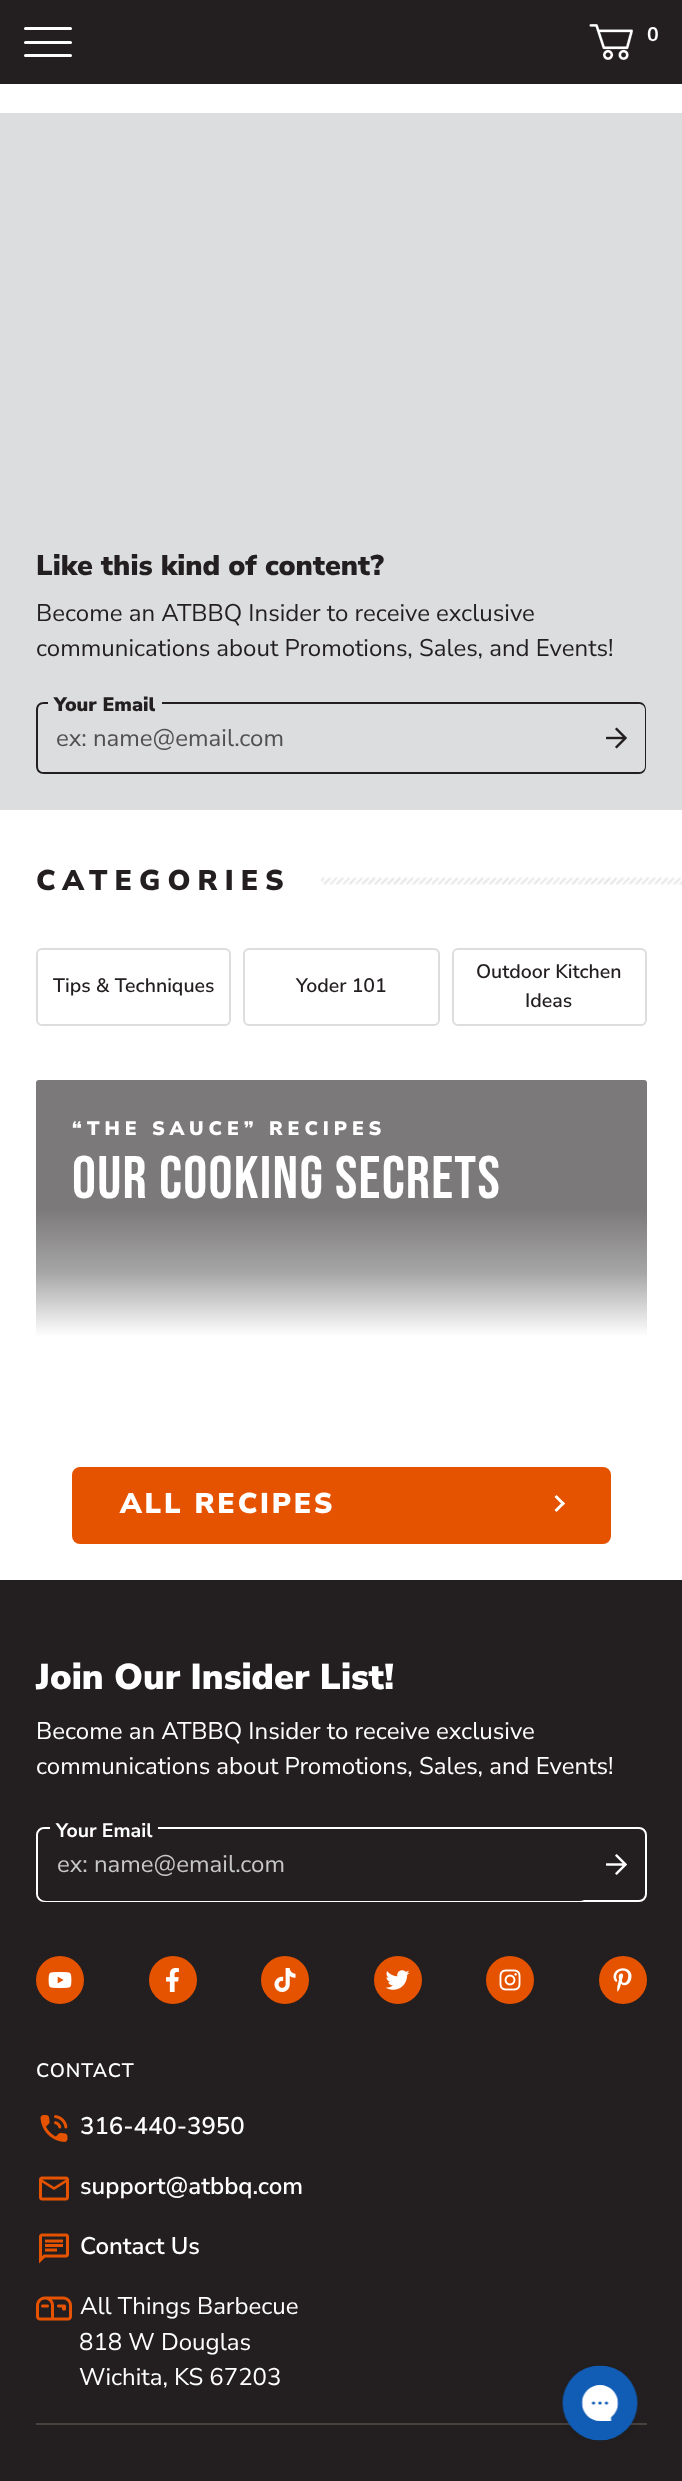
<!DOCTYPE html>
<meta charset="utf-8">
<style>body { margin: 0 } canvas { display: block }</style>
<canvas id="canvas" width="682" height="2481"></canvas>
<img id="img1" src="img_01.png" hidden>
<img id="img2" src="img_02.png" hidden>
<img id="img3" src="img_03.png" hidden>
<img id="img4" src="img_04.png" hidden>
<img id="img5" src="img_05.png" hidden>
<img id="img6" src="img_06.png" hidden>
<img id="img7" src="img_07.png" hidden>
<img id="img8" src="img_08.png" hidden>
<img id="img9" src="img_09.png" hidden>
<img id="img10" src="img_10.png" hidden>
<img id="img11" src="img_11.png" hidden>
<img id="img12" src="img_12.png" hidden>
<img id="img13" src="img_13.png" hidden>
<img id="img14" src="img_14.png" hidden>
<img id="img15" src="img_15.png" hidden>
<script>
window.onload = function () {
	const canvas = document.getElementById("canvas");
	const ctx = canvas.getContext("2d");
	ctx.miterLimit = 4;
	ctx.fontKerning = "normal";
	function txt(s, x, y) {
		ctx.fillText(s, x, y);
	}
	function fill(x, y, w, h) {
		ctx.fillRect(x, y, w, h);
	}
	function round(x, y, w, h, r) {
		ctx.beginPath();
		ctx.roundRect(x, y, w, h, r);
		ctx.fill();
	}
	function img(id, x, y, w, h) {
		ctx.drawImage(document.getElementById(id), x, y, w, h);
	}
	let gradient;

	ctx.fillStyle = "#FFFFFF";
	fill(0, 0, 682, 2481);
	ctx.fillStyle = "#231F20";
	fill(0, 0, 682, 84);
	ctx.fillStyle = "#FFFFFF";
	round(24, 27, 48, 3, 1.5);
	round(24, 41, 48, 3, 1.5);
	round(24, 54, 48, 3, 1.5);
	img("img1", 589, 24, 44, 36);
	ctx.fillStyle = "#DCDDDE";
	fill(0, 113, 682, 697);
	ctx.fillStyle = "#231F20";
	ctx.beginPath();
	ctx.moveTo(44, 702);
	ctx.lineTo(588, 702);
	ctx.lineTo(588, 774);
	ctx.lineTo(44, 774);
	ctx.bezierCurveTo(39, 774, 36, 771, 36, 766);
	ctx.lineTo(36, 710);
	ctx.bezierCurveTo(36, 705, 39, 702, 44, 702);
	ctx.closePath();
	ctx.moveTo(44, 704);
	ctx.lineTo(588, 704);
	ctx.lineTo(588, 772);
	ctx.lineTo(44, 772);
	ctx.bezierCurveTo(40, 772, 38, 770, 38, 766);
	ctx.lineTo(38, 710);
	ctx.bezierCurveTo(38, 706, 40, 704, 44, 704);
	ctx.closePath();
	ctx.fill("evenodd");
	ctx.fillStyle = "#DCDDDE";
	fill(48, 702, 114, 2);
	ctx.fillStyle = "#231F20";
	ctx.beginPath();
	ctx.moveTo(588, 702);
	ctx.lineTo(639, 702);
	ctx.bezierCurveTo(643, 702, 646, 705, 646, 710);
	ctx.lineTo(646, 766);
	ctx.bezierCurveTo(646, 771, 643, 774, 639, 774);
	ctx.lineTo(588, 774);
	ctx.closePath();
	ctx.moveTo(588, 704);
	ctx.lineTo(639, 704);
	ctx.bezierCurveTo(642, 704, 645, 706, 645, 710);
	ctx.lineTo(645, 766);
	ctx.bezierCurveTo(645, 770, 642, 772, 639, 772);
	ctx.lineTo(588, 772);
	ctx.closePath();
	ctx.fill("evenodd");
	img("img2", 606, 727, 21, 22);
	img("img3", 321, 877, 361, 8);
	ctx.beginPath();
	ctx.roundRect(37, 949, 193, 76, 5);
	ctx.strokeStyle = "#DCDDDE";
	ctx.lineWidth = 2;
	ctx.stroke();
	ctx.beginPath();
	ctx.roundRect(244, 949, 195, 76, 5);
	ctx.stroke();
	ctx.beginPath();
	ctx.roundRect(453, 949, 193, 76, 5);
	ctx.stroke();
	gradient = ctx.createLinearGradient(341, 1508, 341, 1080);
	gradient.addColorStop(0.4, "#FFFFFF");
	gradient.addColorStop(0.55, "#A7A6A6");
	gradient.addColorStop(0.7, "#7B7979");
	ctx.fillStyle = gradient;
	round(36, 1080, 611, 428, 3);
	ctx.fillStyle = "#E65300";
	ctx.beginPath();
	ctx.roundRect(73.5, 1468.5, 536, 74, 6.5);
	ctx.fill();
	ctx.strokeStyle = "#E65300";
	ctx.lineWidth = 3;
	ctx.stroke();
	ctx.fillStyle = "#FFFFFF";
	ctx.beginPath();
	ctx.moveTo(554.5, 1497);
	ctx.lineTo(556.5, 1495);
	ctx.lineTo(565, 1503.5);
	ctx.lineTo(563, 1505.5);
	ctx.closePath();
	ctx.fill();
	ctx.beginPath();
	ctx.moveTo(554.5, 1510);
	ctx.lineTo(563, 1501.5);
	ctx.lineTo(565, 1503.5);
	ctx.lineTo(556.5, 1512);
	ctx.closePath();
	ctx.fill();
	ctx.fillStyle = "#231F20";
	fill(0, 1580, 682, 901);
	ctx.fillStyle = "#48413E";
	fill(36, 2423, 611, 2);
	ctx.beginPath();
	ctx.roundRect(37, 1828, 609, 73, 7);
	ctx.strokeStyle = "#FFFFFF";
	ctx.lineWidth = 2;
	ctx.stroke();
	ctx.fillStyle = "#231F20";
	fill(50, 1827, 108, 2);
	ctx.beginPath();
	ctx.roundRect(39, 1830, 548, 70, 7);
	ctx.strokeStyle = "#231F20";
	ctx.stroke();
	img("img4", 606, 1854, 21, 21);
	ctx.fillStyle = "#E65300";
	ctx.beginPath();
	ctx.arc(60, 1980, 24, 0, Math.PI * 2);
	ctx.fill();
	img("img5", 48, 1972, 24, 16);
	ctx.beginPath();
	ctx.arc(173, 1980, 24, 0, Math.PI * 2);
	ctx.fill();
	img("img6", 166, 1968, 13, 24);
	ctx.beginPath();
	ctx.arc(285, 1980, 24, 0, Math.PI * 2);
	ctx.fill();
	img("img7", 274, 1968, 22, 24);
	ctx.beginPath();
	ctx.arc(398, 1980, 24, 0, Math.PI * 2);
	ctx.fill();
	img("img8", 386, 1970, 24, 20);
	ctx.beginPath();
	ctx.arc(510, 1980, 24, 0, Math.PI * 2);
	ctx.fill();
	img("img9", 499, 1969, 22, 22);
	ctx.beginPath();
	ctx.arc(623, 1980, 24, 0, Math.PI * 2);
	ctx.fill();
	img("img10", 613, 1968, 19, 24);
	img("img11", 40, 2115, 28, 27);
	img("img12", 39, 2176, 30, 25);
	img("img13", 39, 2233, 30, 31);
	img("img14", 36, 2296, 36, 25);
	img("img15", 562, 2365, 76, 76);
	ctx.font = "bold 19.5px Nunito Sans";
	ctx.fillStyle = "#FFFFFF";
	txt("0", 647, 41);
	ctx.font = "900 28.5px Nunito Sans";
	ctx.fillStyle = "#231F20";
	txt("Like this kind of content?", 36, 575);
	ctx.font = "24px Nunito Sans";
	txt("Become an ATBBQ Insider to receive exclusive", 36, 621);
	txt("communications about Promotions, Sales, and Events!", 36, 656);
	ctx.font = "900 19.5px Nunito Sans";
	txt("Your Email", 54, 711);
	ctx.font = "24px Nunito Sans";
	ctx.fillStyle = "#514F50";
	txt("ex: name@email.com", 56, 746);
	ctx.letterSpacing = "7.1px";
	ctx.font = "900 28.5px Nunito Sans";
	ctx.fillStyle = "#231F20";
	txt("CATEGORIES", 36, 890);
	ctx.letterSpacing = "0px";
	ctx.font = "600 19.5px Nunito Sans";
	txt("Tips & Techniques", 53, 992);
	txt("Yoder 101", 296, 992);
	txt("Outdoor Kitchen", 476, 978);
	txt("Ideas", 525, 1007);
	ctx.letterSpacing = "4.9px";
	ctx.font = "900 19.5px Nunito Sans";
	ctx.fillStyle = "#FFFFFF";
	txt("“THE SAUCE” RECIPES", 72, 1135);
	ctx.letterSpacing = "1.25px";
	ctx.font = "60px Bebas Neue";
	txt("Our Cooking Secrets", 72, 1198);
	ctx.letterSpacing = "2.8px";
	ctx.font = "900 28.5px Nunito Sans";
	txt("ALL RECIPES", 120, 1513);
	ctx.letterSpacing = "0px";
	ctx.font = "900 36px Nunito Sans";
	txt("Join Our Insider List!", 36, 1689);
	ctx.font = "24px Nunito Sans";
	txt("Become an ATBBQ Insider to receive exclusive", 36, 1739);
	txt("communications about Promotions, Sales, and Events!", 36, 1774);
	ctx.font = "bold 19.5px Nunito Sans";
	txt("Your Email", 56, 1837);
	ctx.font = "24px Nunito Sans";
	ctx.fillStyle = "#C8C7C7";
	txt("ex: name@email.com", 57, 1872);
	ctx.letterSpacing = "1px";
	ctx.font = "600 19.5px Nunito Sans";
	ctx.fillStyle = "#FFFFFF";
	txt("CONTACT", 36, 2077);
	ctx.letterSpacing = "0px";
	ctx.font = "600 24px Nunito Sans";
	txt("316-440-3950", 80, 2134);
	txt("support@atbbq.com", 80, 2194);
	txt("Contact Us", 80, 2254);
	ctx.font = "24px Nunito Sans";
	txt("All Things Barbecue", 80, 2314);
	txt("818 W Douglas", 79, 2350);
	txt("Wichita, KS 67203", 79, 2385);
};
</script>
